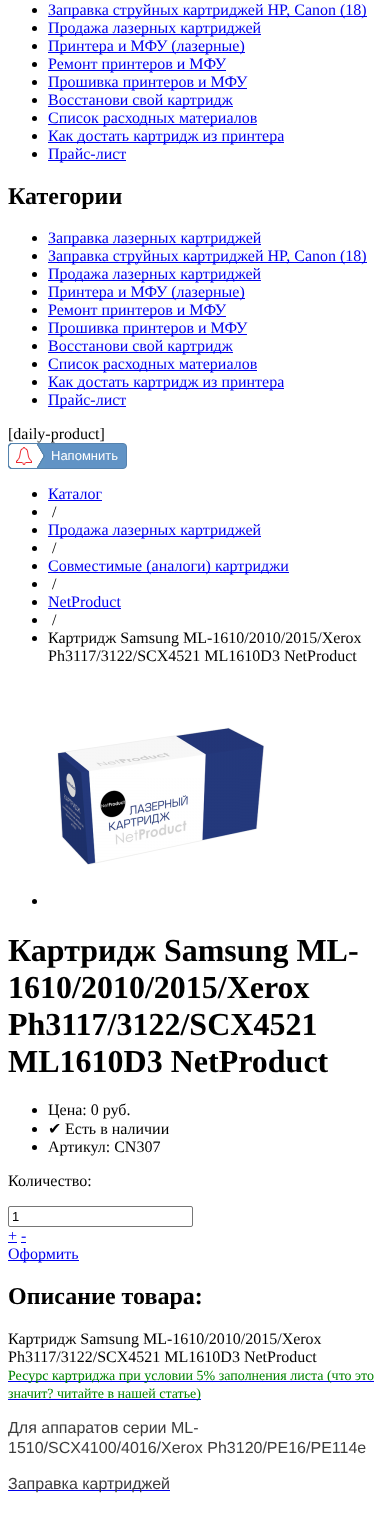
<!DOCTYPE html>
<meta charset="utf-8">
<style>body { margin: 0 } canvas { display: block }</style>
<canvas id="canvas" width="392" height="1521"></canvas>
<img id="img1" src="img_01.png" hidden>
<img id="img2" src="img_02.png" hidden>
<script>
window.onload = function () {
	const canvas = document.getElementById("canvas");
	const ctx = canvas.getContext("2d");
	ctx.miterLimit = 4;
	ctx.fontKerning = "normal";
	function txt(s, x, y) {
		ctx.fillText(s, x, y);
	}
	function fill(x, y, w, h) {
		ctx.fillRect(x, y, w, h);
	}
	function img(id, x, y, w, h) {
		ctx.drawImage(document.getElementById(id), x, y, w, h);
	}

	ctx.fillStyle = "#FFFFFF";
	fill(0, 0, 392, 1521);
	ctx.fillStyle = "#000000";
	ctx.beginPath();
	ctx.arc(34.5, 10.5, 2.5, 0, Math.PI * 2);
	ctx.fill();
	ctx.fillStyle = "#0000EE";
	fill(48, 16, 319, 1);
	ctx.fillStyle = "#000000";
	ctx.beginPath();
	ctx.arc(34.5, 28.5, 2.5, 0, Math.PI * 2);
	ctx.fill();
	ctx.fillStyle = "#0000EE";
	fill(48, 34, 213, 1);
	ctx.fillStyle = "#000000";
	ctx.beginPath();
	ctx.arc(34.5, 46.5, 2.5, 0, Math.PI * 2);
	ctx.fill();
	ctx.fillStyle = "#0000EE";
	fill(48, 52, 197, 1);
	ctx.fillStyle = "#000000";
	ctx.beginPath();
	ctx.arc(34.5, 64.5, 2.5, 0, Math.PI * 2);
	ctx.fill();
	ctx.fillStyle = "#0000EE";
	fill(48, 70, 178, 1);
	ctx.fillStyle = "#000000";
	ctx.beginPath();
	ctx.arc(34.5, 82.5, 2.5, 0, Math.PI * 2);
	ctx.fill();
	ctx.fillStyle = "#0000EE";
	fill(48, 88, 199, 1);
	ctx.fillStyle = "#000000";
	ctx.beginPath();
	ctx.arc(34.5, 100.5, 2.5, 0, Math.PI * 2);
	ctx.fill();
	ctx.fillStyle = "#0000EE";
	fill(48, 106, 185, 1);
	ctx.fillStyle = "#000000";
	ctx.beginPath();
	ctx.arc(34.5, 118.5, 2.5, 0, Math.PI * 2);
	ctx.fill();
	ctx.fillStyle = "#0000EE";
	fill(48, 124, 209, 1);
	ctx.fillStyle = "#000000";
	ctx.beginPath();
	ctx.arc(34.5, 136.5, 2.5, 0, Math.PI * 2);
	ctx.fill();
	ctx.fillStyle = "#0000EE";
	fill(48, 142, 236, 1);
	ctx.fillStyle = "#000000";
	ctx.beginPath();
	ctx.arc(34.5, 154.5, 2.5, 0, Math.PI * 2);
	ctx.fill();
	ctx.fillStyle = "#0000EE";
	fill(48, 160, 78, 1);
	ctx.fillStyle = "#000000";
	ctx.beginPath();
	ctx.arc(34.5, 238.5, 2.5, 0, Math.PI * 2);
	ctx.fill();
	ctx.fillStyle = "#0000EE";
	fill(48, 244, 213, 1);
	ctx.fillStyle = "#000000";
	ctx.beginPath();
	ctx.arc(34.5, 256.5, 2.5, 0, Math.PI * 2);
	ctx.fill();
	ctx.fillStyle = "#0000EE";
	fill(48, 262, 319, 1);
	ctx.fillStyle = "#000000";
	ctx.beginPath();
	ctx.arc(34.5, 274.5, 2.5, 0, Math.PI * 2);
	ctx.fill();
	ctx.fillStyle = "#0000EE";
	fill(48, 280, 213, 1);
	ctx.fillStyle = "#000000";
	ctx.beginPath();
	ctx.arc(34.5, 292.5, 2.5, 0, Math.PI * 2);
	ctx.fill();
	ctx.fillStyle = "#0000EE";
	fill(48, 298, 197, 1);
	ctx.fillStyle = "#000000";
	ctx.beginPath();
	ctx.arc(34.5, 310.5, 2.5, 0, Math.PI * 2);
	ctx.fill();
	ctx.fillStyle = "#0000EE";
	fill(48, 316, 178, 1);
	ctx.fillStyle = "#000000";
	ctx.beginPath();
	ctx.arc(34.5, 328.5, 2.5, 0, Math.PI * 2);
	ctx.fill();
	ctx.fillStyle = "#0000EE";
	fill(48, 334, 199, 1);
	ctx.fillStyle = "#000000";
	ctx.beginPath();
	ctx.arc(34.5, 346.5, 2.5, 0, Math.PI * 2);
	ctx.fill();
	ctx.fillStyle = "#0000EE";
	fill(48, 352, 185, 1);
	ctx.fillStyle = "#000000";
	ctx.beginPath();
	ctx.arc(34.5, 364.5, 2.5, 0, Math.PI * 2);
	ctx.fill();
	ctx.fillStyle = "#0000EE";
	fill(48, 370, 209, 1);
	ctx.fillStyle = "#000000";
	ctx.beginPath();
	ctx.arc(34.5, 382.5, 2.5, 0, Math.PI * 2);
	ctx.fill();
	ctx.fillStyle = "#0000EE";
	fill(48, 388, 236, 1);
	ctx.fillStyle = "#000000";
	ctx.beginPath();
	ctx.arc(34.5, 400.5, 2.5, 0, Math.PI * 2);
	ctx.fill();
	ctx.fillStyle = "#0000EE";
	fill(48, 406, 78, 1);
	ctx.fillStyle = "#6193C5";
	ctx.beginPath();
	ctx.roundRect(8.5, 443.5, 118, 25, 3.5);
	ctx.fill();
	ctx.strokeStyle = "#5582AE";
	ctx.stroke();
	img("img1", 8, 443, 37, 26);
	ctx.fillStyle = "#000000";
	ctx.beginPath();
	ctx.arc(34.5, 494.5, 2.5, 0, Math.PI * 2);
	ctx.fill();
	ctx.fillStyle = "#0000EE";
	fill(48, 500, 54, 1);
	ctx.fillStyle = "#000000";
	ctx.beginPath();
	ctx.arc(34.5, 512.5, 2.5, 0, Math.PI * 2);
	ctx.fill();
	ctx.beginPath();
	ctx.arc(34.5, 530.5, 2.5, 0, Math.PI * 2);
	ctx.fill();
	ctx.fillStyle = "#0000EE";
	fill(48, 536, 213, 1);
	ctx.fillStyle = "#000000";
	ctx.beginPath();
	ctx.arc(34.5, 548.5, 2.5, 0, Math.PI * 2);
	ctx.fill();
	ctx.beginPath();
	ctx.arc(34.5, 566.5, 2.5, 0, Math.PI * 2);
	ctx.fill();
	ctx.fillStyle = "#0000EE";
	fill(48, 572, 241, 1);
	ctx.fillStyle = "#000000";
	ctx.beginPath();
	ctx.arc(34.5, 584.5, 2.5, 0, Math.PI * 2);
	ctx.fill();
	ctx.beginPath();
	ctx.arc(34.5, 602.5, 2.5, 0, Math.PI * 2);
	ctx.fill();
	ctx.fillStyle = "#0000EE";
	fill(48, 608, 73, 1);
	ctx.fillStyle = "#000000";
	ctx.beginPath();
	ctx.arc(34.5, 620.5, 2.5, 0, Math.PI * 2);
	ctx.fill();
	ctx.beginPath();
	ctx.arc(34.5, 638.5, 2.5, 0, Math.PI * 2);
	ctx.fill();
	img("img2", 57, 727, 207, 138);
	ctx.beginPath();
	ctx.arc(34.5, 901.5, 2.5, 0, Math.PI * 2);
	ctx.fill();
	ctx.beginPath();
	ctx.arc(34.5, 1110.5, 2.5, 0, Math.PI * 2);
	ctx.fill();
	ctx.beginPath();
	ctx.arc(34.5, 1129.5, 2.5, 0, Math.PI * 2);
	ctx.fill();
	ctx.beginPath();
	ctx.arc(34.5, 1147.5, 2.5, 0, Math.PI * 2);
	ctx.fill();
	ctx.beginPath();
	ctx.roundRect(8.5, 1206.5, 184, 20, 1.5);
	ctx.strokeStyle = "#767676";
	ctx.stroke();
	ctx.fillStyle = "#0000EE";
	fill(8, 1242, 9, 1);
	fill(21, 1242, 5, 1);
	fill(8, 1260, 71, 1);
	fill(8, 1381, 366, 1);
	fill(8, 1399, 193, 1);
	fill(8, 1490, 162, 1);
	ctx.font = "16px Liberation Serif";
	txt("Заправка струйных картриджей HP, Canon (18)", 48, 15);
	txt("Продажа лазерных картриджей", 48, 33);
	txt("Принтера и МФУ (лазерные)", 48, 51);
	txt("Ремонт принтеров и МФУ", 48, 69);
	txt("Прошивка принтеров и МФУ", 48, 87);
	txt("Восстанови свой картридж", 48, 105);
	txt("Список расходных материалов", 48, 123);
	txt("Как достать картридж из принтера", 48, 141);
	txt("Прайс-лист", 48, 159);
	ctx.font = "bold 24px Liberation Serif";
	ctx.fillStyle = "#000000";
	txt("Категории", 8, 204);
	ctx.font = "16px Liberation Serif";
	ctx.fillStyle = "#0000EE";
	txt("Заправка лазерных картриджей", 48, 243);
	txt("Заправка струйных картриджей HP, Canon (18)", 48, 261);
	txt("Продажа лазерных картриджей", 48, 279);
	txt("Принтера и МФУ (лазерные)", 48, 297);
	txt("Ремонт принтеров и МФУ", 48, 315);
	txt("Прошивка принтеров и МФУ", 48, 333);
	txt("Восстанови свой картридж", 48, 351);
	txt("Список расходных материалов", 48, 369);
	txt("Как достать картридж из принтера", 48, 387);
	txt("Прайс-лист", 48, 405);
	ctx.fillStyle = "#000000";
	txt("[daily-product]", 8, 439);
	ctx.font = "13px Liberation Sans";
	ctx.fillStyle = "#FFFFFF";
	txt("Напомнить", 51, 460);
	ctx.font = "16px Liberation Serif";
	ctx.fillStyle = "#0000EE";
	txt("Каталог", 48, 499);
	ctx.fillStyle = "#000000";
	txt("/", 52, 517);
	ctx.fillStyle = "#0000EE";
	txt("Продажа лазерных картриджей", 48, 535);
	ctx.fillStyle = "#000000";
	txt("/", 52, 553);
	ctx.fillStyle = "#0000EE";
	txt("Совместимые (аналоги) картриджи", 48, 571);
	ctx.fillStyle = "#000000";
	txt("/", 52, 589);
	ctx.fillStyle = "#0000EE";
	txt("NetProduct", 48, 607);
	ctx.fillStyle = "#000000";
	txt("/", 52, 625);
	txt("Картридж Samsung ML-1610/2010/2015/Xerox", 48, 643);
	txt("Ph3117/3122/SCX4521 ML1610D3 NetProduct", 48, 661);
	ctx.font = "bold 32px Liberation Serif";
	txt("Картридж Samsung ML-", 8, 961);
	txt("1610/2010/2015/Xerox", 8, 998);
	txt("Ph3117/3122/SCX4521", 8, 1035);
	txt("ML1610D3 NetProduct", 8, 1072);
	ctx.font = "16px Liberation Serif";
	txt("Цена: 0 руб.", 48, 1115);
	ctx.font = "16px DejaVu Sans";
	txt("✔", 48, 1134);
	ctx.font = "16px Liberation Serif";
	txt("Есть в наличии", 65, 1134);
	txt("Артикул: CN307", 48, 1152);
	txt("Количество:", 8, 1186);
	ctx.font = "13px Liberation Sans";
	txt("1", 12, 1221);
	ctx.font = "16px Liberation Serif";
	ctx.fillStyle = "#0000EE";
	txt("+ -", 8, 1241);
	txt("Оформить", 8, 1259);
	ctx.font = "bold 24px Liberation Serif";
	ctx.fillStyle = "#000000";
	txt("Описание товара:", 8, 1304);
	ctx.font = "16px Liberation Serif";
	txt("Картридж Samsung ML-1610/2010/2015/Xerox", 8, 1344);
	txt("Ph3117/3122/SCX4521 ML1610D3 NetProduct", 8, 1362);
	ctx.font = "14px Liberation Serif";
	ctx.fillStyle = "#008000";
	txt("Ресурс картриджа при условии 5% заполнения листа (что это", 8, 1380);
	txt("значит? читайте в нашей статье)", 8, 1398);
	ctx.font = "16px Liberation Sans";
	ctx.fillStyle = "#3D3D3D";
	txt("Для аппаратов серии ML-", 8, 1433);
	txt("1510/SCX4100/4016/Xerox Ph3120/PE16/PE114e", 8, 1453);
	txt("Заправка картриджей", 8, 1489);
};
</script>
